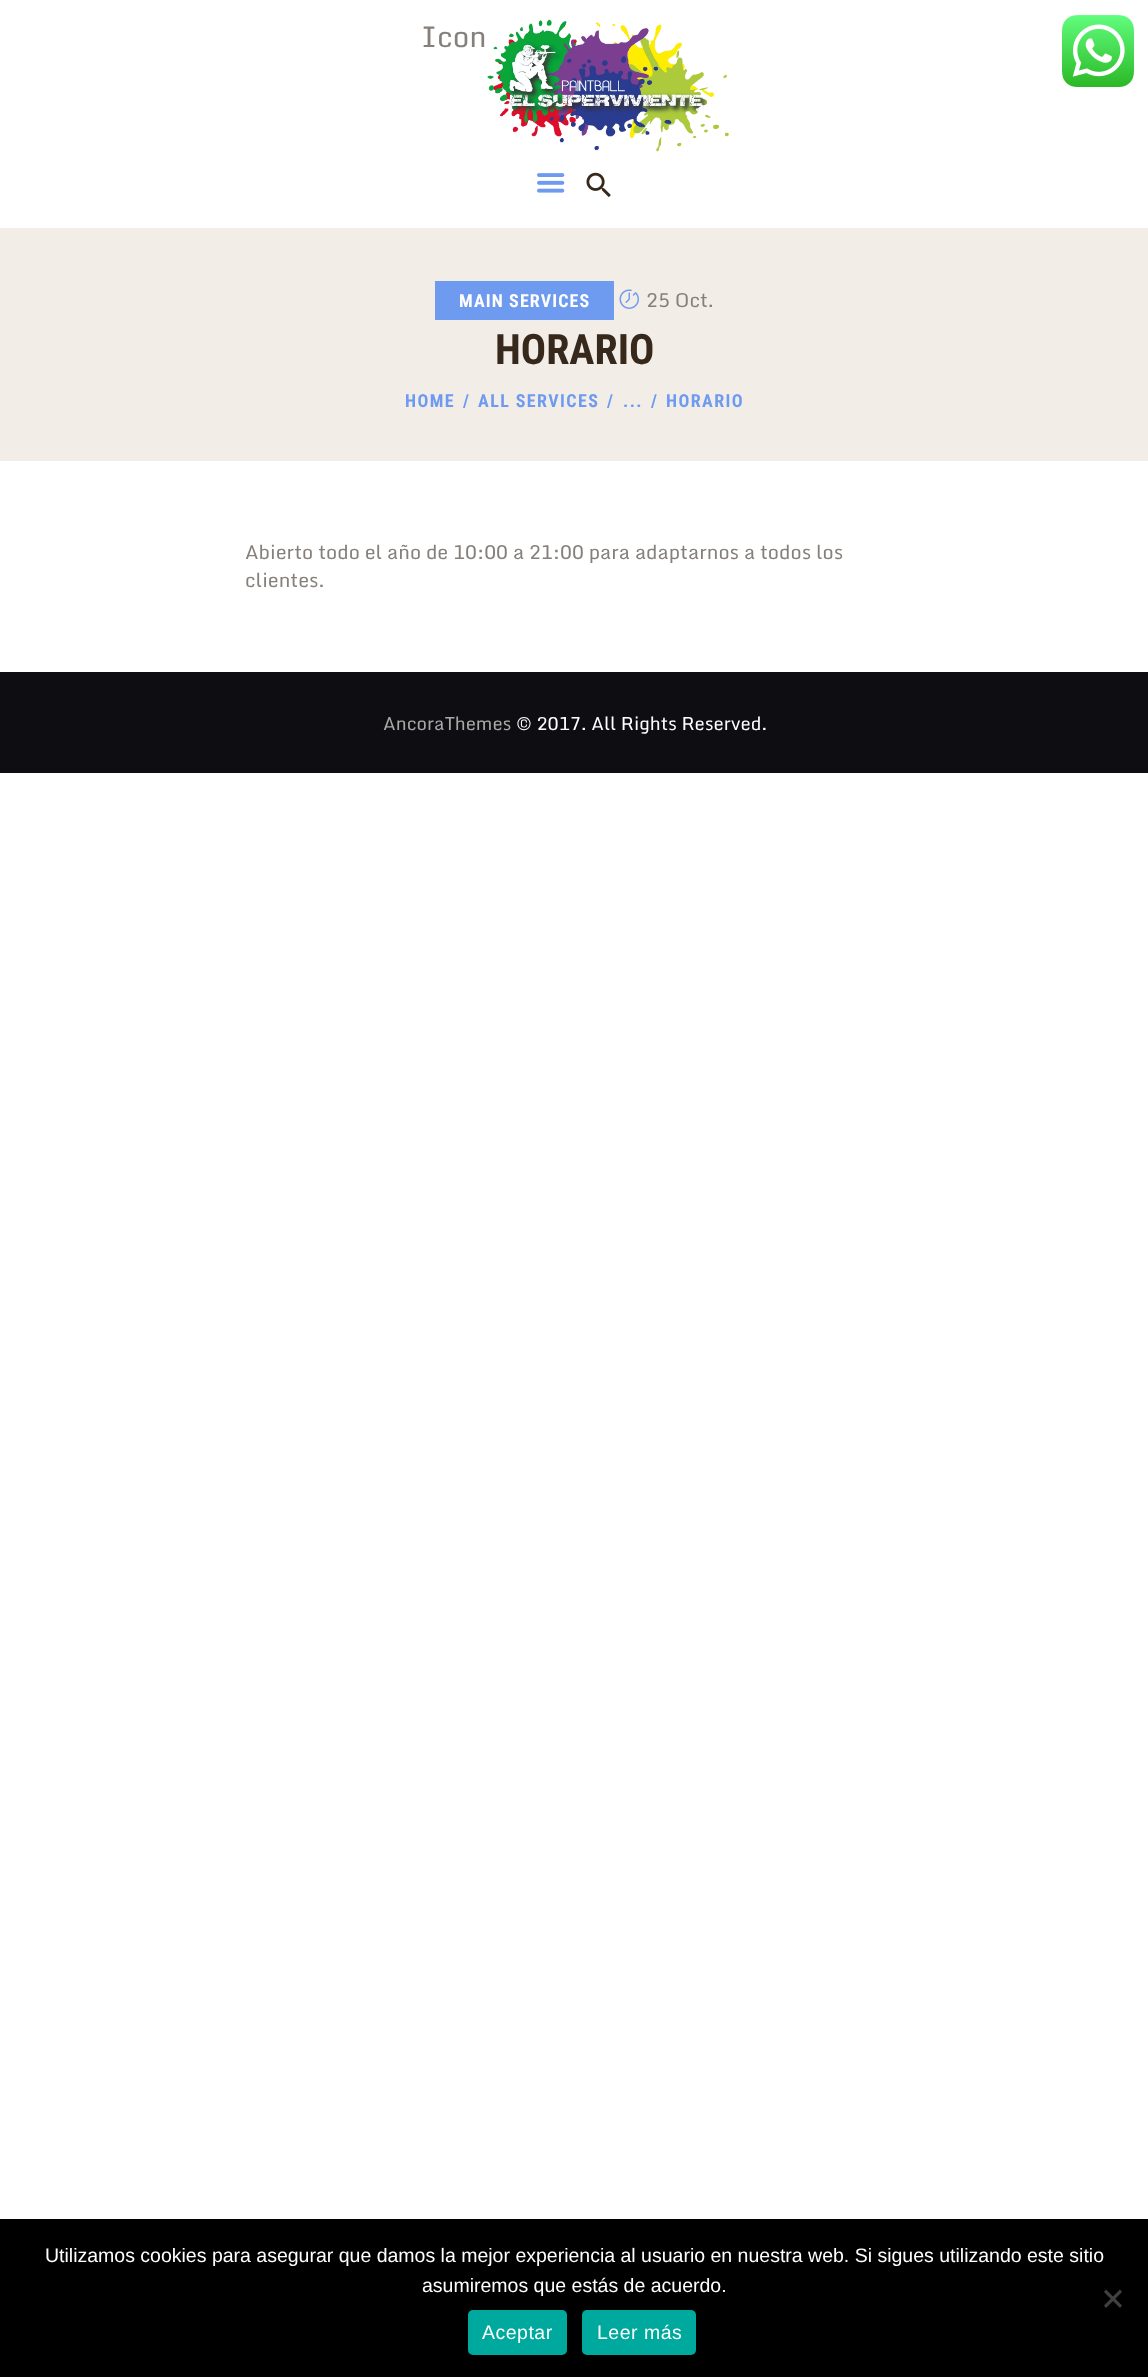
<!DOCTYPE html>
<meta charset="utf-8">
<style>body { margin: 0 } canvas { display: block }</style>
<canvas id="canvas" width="1148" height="2377"></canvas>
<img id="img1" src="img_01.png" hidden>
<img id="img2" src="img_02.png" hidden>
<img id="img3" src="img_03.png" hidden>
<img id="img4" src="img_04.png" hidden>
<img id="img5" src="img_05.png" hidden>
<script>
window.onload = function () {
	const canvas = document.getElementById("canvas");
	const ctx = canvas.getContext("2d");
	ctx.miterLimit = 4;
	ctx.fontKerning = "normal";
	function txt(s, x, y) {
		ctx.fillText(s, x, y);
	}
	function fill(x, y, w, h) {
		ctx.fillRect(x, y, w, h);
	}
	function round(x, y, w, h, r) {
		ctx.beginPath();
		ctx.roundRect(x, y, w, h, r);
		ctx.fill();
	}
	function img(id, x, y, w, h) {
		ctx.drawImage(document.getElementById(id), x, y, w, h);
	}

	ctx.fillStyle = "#FFFFFF";
	fill(0, 0, 1148, 2377);
	ctx.fillStyle = "#F2EDE8";
	fill(0, 228, 1148, 2);
	img("img1", 487, 19, 242, 133);
	img("img2", 537, 173, 28, 20);
	img("img3", 586, 172, 25, 26);
	ctx.fillStyle = "#F3EDE8";
	fill(0, 230, 1148, 231);
	ctx.fillStyle = "#6E9BF0";
	fill(435, 281, 179, 39);
	img("img4", 619, 289, 20, 20);
	ctx.fillStyle = "#0E0D12";
	fill(0, 672, 1148, 101);
	img("img5", 1062, 15, 72, 72);
	ctx.fillStyle = "#000000";
	fill(0, 2219, 1148, 158);
	ctx.fillStyle = "#404040";
	ctx.beginPath();
	ctx.moveTo(1120, 2289.5);
	ctx.lineTo(1122, 2292);
	ctx.lineTo(1106, 2308);
	ctx.lineTo(1104, 2305.5);
	ctx.closePath();
	ctx.fill();
	ctx.beginPath();
	ctx.moveTo(1104, 2292);
	ctx.lineTo(1106, 2289.5);
	ctx.lineTo(1122, 2305.5);
	ctx.lineTo(1120, 2308);
	ctx.closePath();
	ctx.fill();
	ctx.fillStyle = "#00A99D";
	round(468, 2310, 99, 45, 5);
	round(582, 2310, 114, 45, 5);
	ctx.font = "29px Monda";
	ctx.fillStyle = "#86807C";
	txt("Icon", 421, 47);
	ctx.letterSpacing = "1.1px";
	ctx.font = "bold 18px Roboto Condensed";
	ctx.fillStyle = "#FFFFFF";
	txt("MAIN SERVICES", 459, 307);
	ctx.letterSpacing = "0px";
	ctx.font = "19.5px Monda";
	ctx.fillStyle = "#86807C";
	txt("25 Oct.", 646, 307);
	ctx.font = "bold 42px Roboto Condensed";
	ctx.fillStyle = "#37281C";
	txt("HORARIO", 495, 364);
	ctx.letterSpacing = "1.4px";
	ctx.font = "bold 18px Roboto Condensed";
	ctx.fillStyle = "#6E9BF0";
	txt("HOME", 405, 407);
	txt("/", 463, 407);
	txt("ALL SERVICES", 478, 407);
	txt("/", 607, 407);
	txt("...", 623, 407);
	txt("/", 651, 407);
	txt("HORARIO", 666, 407);
	ctx.letterSpacing = "0px";
	ctx.font = "19.5px Monda";
	ctx.fillStyle = "#86807C";
	txt("Abierto todo el año de 10:00 a 21:00 para adaptarnos a todos los", 245, 559);
	txt("clientes.", 245, 587);
	ctx.font = "18.25px Monda";
	ctx.fillStyle = "#AAA8A7";
	txt("AncoraThemes", 383, 730);
	ctx.fillStyle = "#FFFFFF";
	txt("© 2017. All Rights Reserved.", 516, 730);
	ctx.font = "19.5px Liberation Sans";
	txt("Utilizamos cookies para asegurar que damos la mejor experiencia al usuario en nuestra web. Si sigues utilizando este sitio", 45, 2262);
	txt("asumiremos que estás de acuerdo.", 422, 2292);
	ctx.letterSpacing = "0.5px";
	txt("Aceptar", 482, 2339);
	txt("Leer más", 597, 2339);
};
</script>
